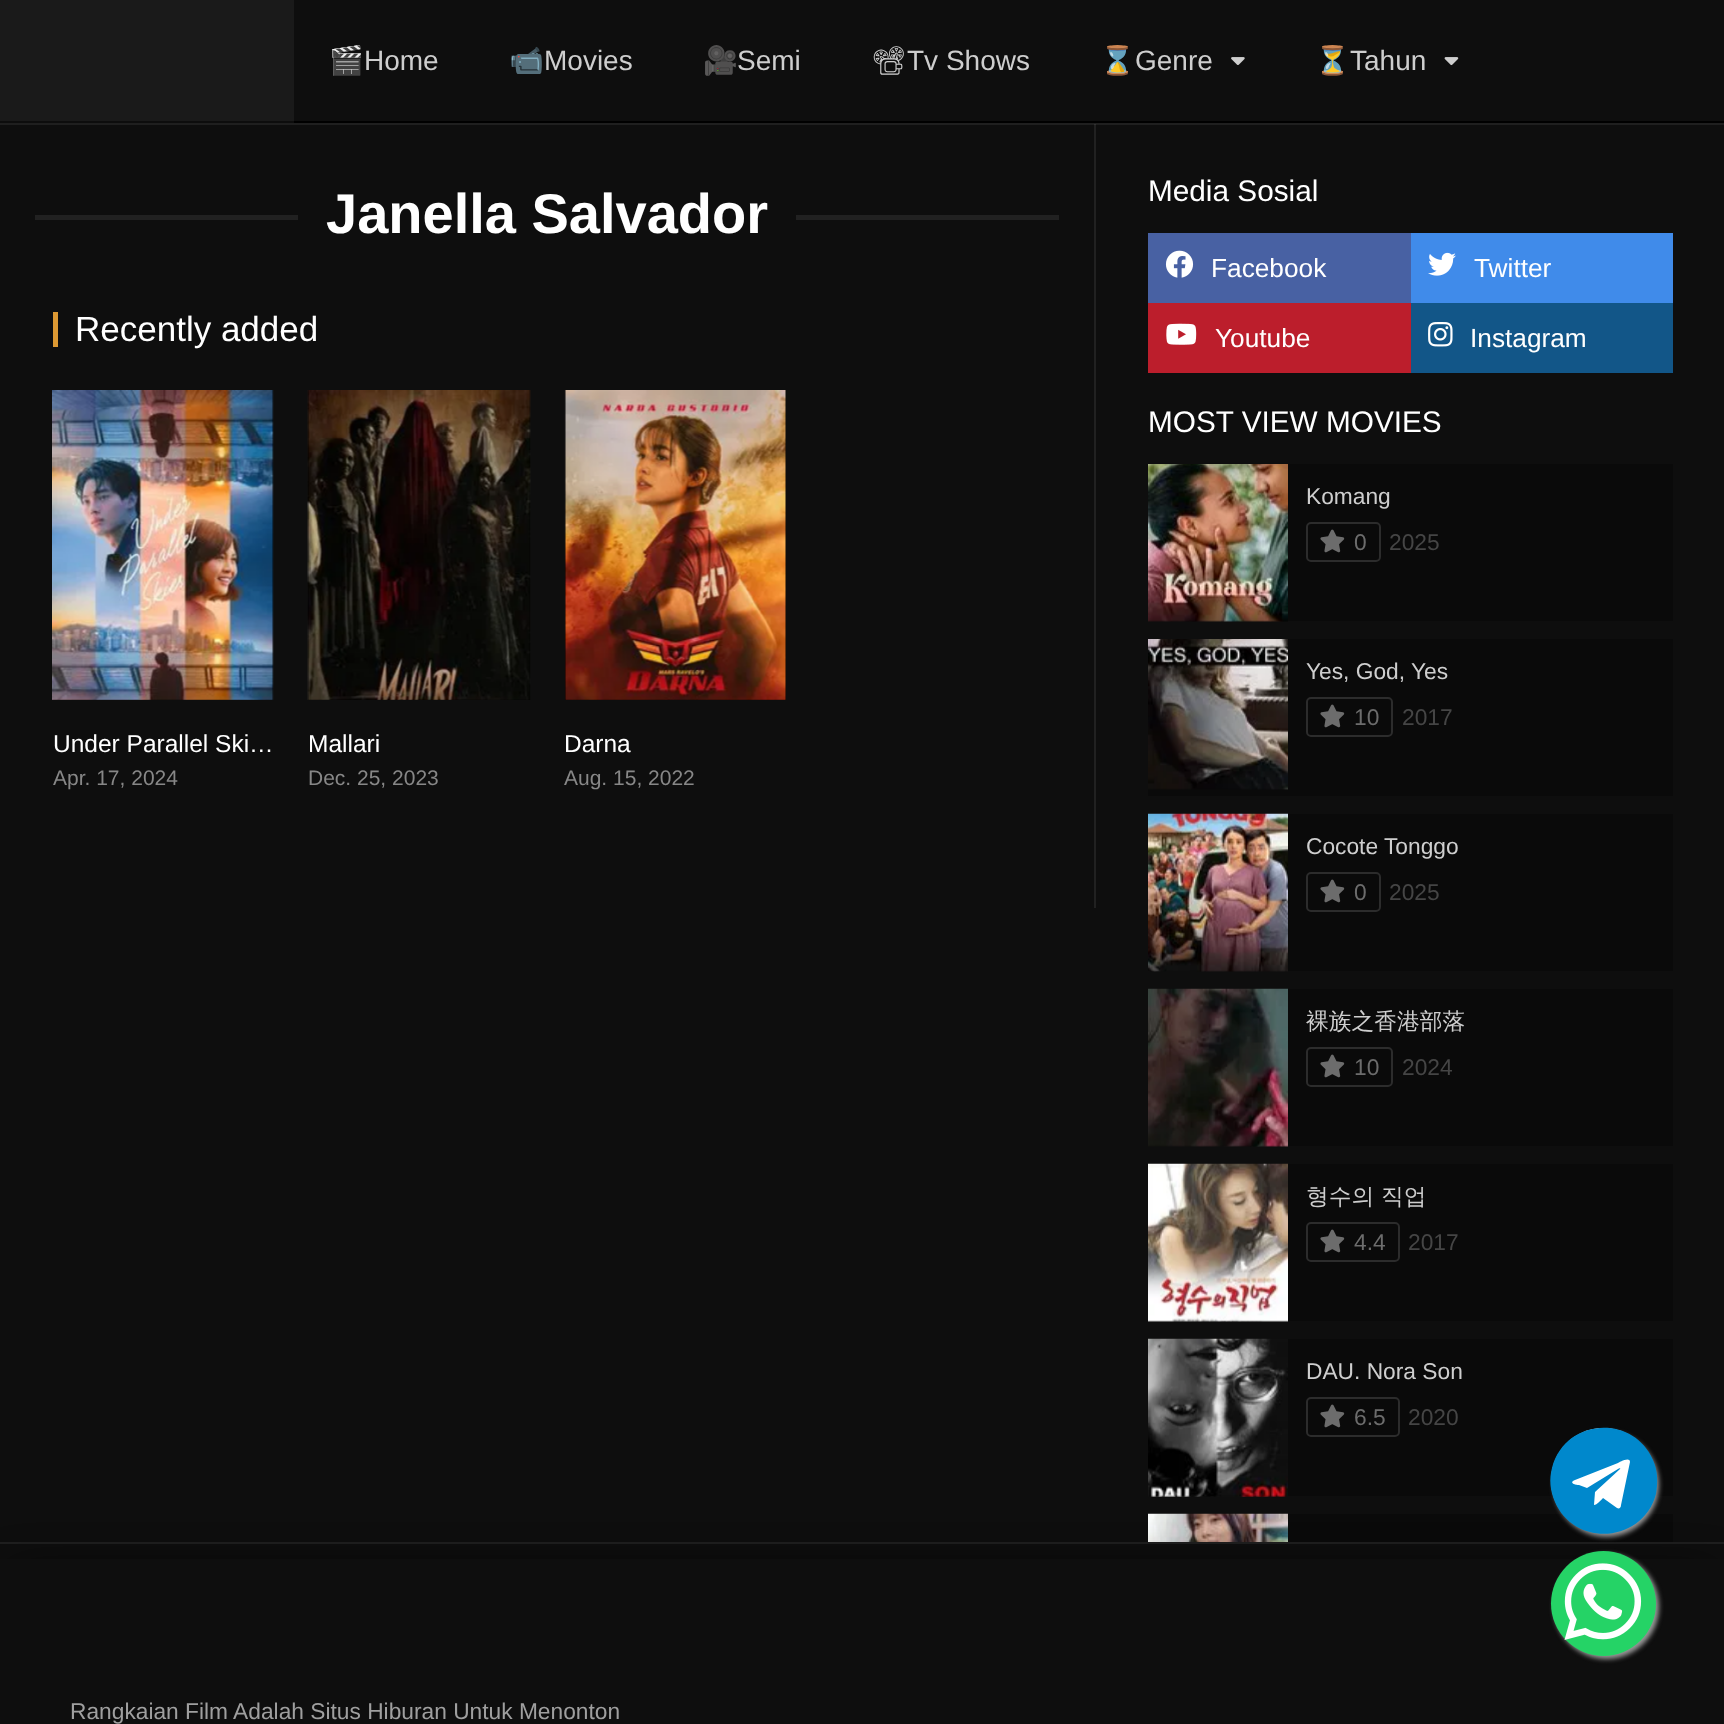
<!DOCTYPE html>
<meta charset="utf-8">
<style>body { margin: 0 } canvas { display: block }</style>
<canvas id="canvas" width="1724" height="1724"></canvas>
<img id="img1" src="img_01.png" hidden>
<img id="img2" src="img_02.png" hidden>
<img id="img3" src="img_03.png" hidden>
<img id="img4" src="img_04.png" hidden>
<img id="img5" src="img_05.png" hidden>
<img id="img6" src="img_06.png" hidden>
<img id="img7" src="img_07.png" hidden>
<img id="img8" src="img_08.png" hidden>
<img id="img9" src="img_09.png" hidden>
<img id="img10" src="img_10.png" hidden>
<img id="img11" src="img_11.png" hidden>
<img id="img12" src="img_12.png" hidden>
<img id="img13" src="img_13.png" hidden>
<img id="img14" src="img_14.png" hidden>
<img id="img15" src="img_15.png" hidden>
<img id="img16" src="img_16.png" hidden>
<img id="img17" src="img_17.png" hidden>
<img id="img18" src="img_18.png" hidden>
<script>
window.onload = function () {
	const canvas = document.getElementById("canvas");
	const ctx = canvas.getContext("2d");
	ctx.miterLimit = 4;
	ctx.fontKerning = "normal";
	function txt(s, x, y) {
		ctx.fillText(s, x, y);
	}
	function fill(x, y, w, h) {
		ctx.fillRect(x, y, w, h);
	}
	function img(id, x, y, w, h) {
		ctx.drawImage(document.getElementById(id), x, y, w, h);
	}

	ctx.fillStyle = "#0E0E0E";
	fill(0, 0, 1724, 1724);
	ctx.fillStyle = "#000000";
	fill(0, 121, 1724, 2);
	ctx.fillStyle = "rgba(255, 255, 255, 0.05)";
	fill(0, 0, 294, 123);
	img("img1", 1231, 57, 14, 8);
	img("img2", 1444, 57, 15, 9);
	ctx.fillStyle = "#212121";
	fill(1094, 124, 2, 784);
	ctx.fillStyle = "#1F1F1F";
	fill(0, 123, 1724, 2);
	ctx.fillStyle = "#313131";
	fill(1094, 124, 2, 1);
	ctx.fillStyle = "#1F1F1F";
	fill(0, 1542, 1724, 2);
	ctx.fillStyle = "#212121";
	fill(35, 215, 263, 5);
	fill(796, 215, 263, 5);
	ctx.fillStyle = "#DD9933";
	fill(53, 312, 5, 35);
	ctx.fillStyle = "#000000";
	fill(53, 390, 220, 310);
	img("img3", 52, 390, 222, 310);
	fill(308, 390, 222, 310);
	img("img4", 307, 390, 224, 310);
	fill(565, 390, 221, 310);
	img("img5", 564, 390, 222, 310);
	ctx.fillStyle = "#4861A3";
	fill(1148, 233, 263, 70);
	img("img6", 1165, 250, 29, 28);
	ctx.fillStyle = "#408BEA";
	fill(1411, 233, 262, 70);
	img("img7", 1428, 252, 28, 24);
	ctx.fillStyle = "#BC1E2C";
	fill(1148, 303, 263, 70);
	img("img8", 1166, 323, 31, 22);
	ctx.fillStyle = "#125688";
	fill(1411, 303, 262, 70);
	img("img9", 1428, 322, 25, 25);
	ctx.fillStyle = "#0A0A0A";
	fill(1148, 464, 525, 157);
	img("img10", 1148, 464, 140, 158);
	ctx.beginPath();
	ctx.roundRect(1307, 523, 73, 38, 4);
	ctx.strokeStyle = "#2C2C2C";
	ctx.lineWidth = 2;
	ctx.stroke();
	img("img11", 1320, 529, 25, 24);
	fill(1148, 639, 525, 157);
	img("img12", 1148, 639, 140, 151);
	ctx.beginPath();
	ctx.roundRect(1307, 698, 85, 38, 4);
	ctx.stroke();
	img("img11", 1320, 704, 25, 24);
	fill(1148, 814, 525, 157);
	img("img13", 1148, 813, 140, 159);
	ctx.beginPath();
	ctx.roundRect(1307, 873, 73, 38, 4);
	ctx.stroke();
	img("img11", 1320, 879, 25, 24);
	fill(1148, 989, 525, 157);
	img("img14", 1148, 988, 140, 159);
	ctx.beginPath();
	ctx.roundRect(1307, 1048, 85, 38, 4);
	ctx.stroke();
	img("img11", 1320, 1054, 25, 24);
	fill(1148, 1164, 525, 157);
	img("img15", 1148, 1163, 140, 159);
	ctx.beginPath();
	ctx.roundRect(1307, 1223, 92, 38, 4);
	ctx.stroke();
	img("img11", 1320, 1229, 25, 24);
	fill(1148, 1339, 525, 157);
	img("img16", 1148, 1338, 140, 159);
	ctx.beginPath();
	ctx.roundRect(1307, 1398, 92, 38, 4);
	ctx.stroke();
	img("img11", 1320, 1404, 25, 24);
	fill(1288, 1514, 385, 28);
	img("img17", 1148, 1513, 140, 29);
	ctx.fillStyle = "#999999";
	ctx.filter = "blur(2.5px)";
	ctx.beginPath();
	ctx.roundRect(1554, 1432, 105, 105, 52.5);
	ctx.fill();
	ctx.filter = "none";
	ctx.fillStyle = "rgba(0, 0, 0, 0.7)";
	ctx.filter = "blur(22px)";
	ctx.beginPath();
	ctx.rect(12, 1573, 1701, 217);
	ctx.fill();
	ctx.filter = "none";
	ctx.fillStyle = "#FFFFFF";
	ctx.beginPath();
	ctx.arc(1603.5, 1480.5, 52.5, 0, Math.PI * 2);
	ctx.fill();
	ctx.fillStyle = "#0088CC";
	ctx.beginPath();
	ctx.moveTo(1621, 1505);
	ctx.lineTo(1630, 1462);
	ctx.bezierCurveTo(1630, 1456, 1618, 1463, 1618, 1463);
	ctx.lineTo(1575, 1480);
	ctx.bezierCurveTo(1568, 1483, 1576, 1485, 1579, 1485);
	ctx.lineTo(1587, 1488);
	ctx.lineTo(1618, 1469);
	ctx.bezierCurveTo(1619, 1468, 1621, 1468, 1620, 1469);
	ctx.lineTo(1595, 1492);
	ctx.lineTo(1594, 1505);
	ctx.bezierCurveTo(1597, 1505, 1601, 1500, 1603, 1498);
	ctx.lineTo(1617, 1508);
	ctx.bezierCurveTo(1619, 1509, 1621, 1508, 1621, 1505);
	ctx.closePath();
	ctx.moveTo(1653, 1460);
	ctx.bezierCurveTo(1658, 1471, 1658, 1483, 1656, 1494);
	ctx.bezierCurveTo(1643, 1543, 1575, 1548, 1555, 1502);
	ctx.bezierCurveTo(1550, 1491, 1549, 1479, 1552, 1468);
	ctx.bezierCurveTo(1565, 1418, 1633, 1414, 1653, 1460);
	ctx.closePath();
	ctx.fill();
	ctx.fillStyle = "#0E0E0E";
	fill(0, 1559, 1724, 165);
	ctx.fillStyle = "#999999";
	ctx.filter = "blur(2.5px)";
	ctx.beginPath();
	ctx.roundRect(1554, 1554, 105, 105, 52.5);
	ctx.fill();
	ctx.filter = "none";
	ctx.fillStyle = "#25D366";
	ctx.beginPath();
	ctx.arc(1603.5, 1603.5, 52.5, 0, Math.PI * 2);
	ctx.fill();
	img("img18", 1564, 1563, 78, 77);
	ctx.font = "28px Noto Color Emoji";
	ctx.fillStyle = "#CECECE";
	txt("🎬", 329, 70);
	ctx.font = "28px Liberation Sans";
	txt("Home", 364, 70);
	ctx.font = "28px Noto Color Emoji";
	txt("📹", 509, 70);
	ctx.font = "28px Liberation Sans";
	txt("Movies", 544, 70);
	ctx.font = "28px Noto Color Emoji";
	txt("🎥", 703, 70);
	ctx.font = "28px Liberation Sans";
	txt("Semi", 737, 70);
	ctx.font = "28px Noto Emoji";
	txt("📽", 871, 70);
	ctx.font = "28px Liberation Sans";
	txt("Tv Shows", 907, 70);
	ctx.font = "28px Noto Color Emoji";
	txt("⌛️", 1100, 70);
	ctx.font = "28px Liberation Sans";
	txt("Genre", 1135, 70);
	ctx.font = "28px Noto Color Emoji";
	txt("⏳", 1315, 70);
	ctx.font = "28px Liberation Sans";
	txt("Tahun", 1350, 70);
	ctx.font = "bold 56px Liberation Sans";
	ctx.fillStyle = "#FFFFFF";
	txt("Janella Salvador", 326, 233);
	ctx.font = "35px Liberation Sans";
	txt("Recently added", 75, 341);
	ctx.font = "24.5px Liberation Sans";
	txt("Under Parallel Ski…", 53, 752);
	ctx.font = "21px Liberation Sans";
	ctx.fillStyle = "#878787";
	txt("Apr. 17, 2024", 53, 785);
	ctx.font = "24.5px Liberation Sans";
	ctx.fillStyle = "#FFFFFF";
	txt("Mallari", 308, 752);
	ctx.font = "21px Liberation Sans";
	ctx.fillStyle = "#878787";
	txt("Dec. 25, 2023", 308, 785);
	ctx.font = "24.5px Liberation Sans";
	ctx.fillStyle = "#FFFFFF";
	txt("Darna", 564, 752);
	ctx.font = "21px Liberation Sans";
	ctx.fillStyle = "#878787";
	txt("Aug. 15, 2022", 564, 785);
	ctx.font = "29.75px Liberation Sans";
	ctx.fillStyle = "#FFFFFF";
	txt("Media Sosial", 1148, 201);
	ctx.font = "26.25px Liberation Sans";
	txt("Facebook", 1211, 277);
	txt("Twitter", 1474, 277);
	txt("Youtube", 1215, 347);
	txt("Instagram", 1470, 347);
	ctx.font = "29.75px Liberation Sans";
	txt("MOST VIEW MOVIES", 1148, 432);
	ctx.font = "22.75px Liberation Sans";
	ctx.fillStyle = "#CECECE";
	txt("Komang", 1306, 504);
	ctx.fillStyle = "#6C6C6C";
	txt("0", 1354, 550);
	ctx.fillStyle = "#454545";
	txt("2025", 1389, 550);
	ctx.fillStyle = "#CECECE";
	txt("Yes, God, Yes", 1306, 679);
	ctx.fillStyle = "#6C6C6C";
	txt("10", 1354, 725);
	ctx.fillStyle = "#454545";
	txt("2017", 1402, 725);
	ctx.fillStyle = "#CECECE";
	txt("Cocote Tonggo", 1306, 854);
	ctx.fillStyle = "#6C6C6C";
	txt("0", 1354, 900);
	ctx.fillStyle = "#454545";
	txt("2025", 1389, 900);
	ctx.font = "500 22.75px WenQuanYi Zen Hei";
	ctx.fillStyle = "#CECECE";
	txt("裸族之香港部落", 1306, 1029);
	ctx.font = "22.75px Liberation Sans";
	ctx.fillStyle = "#6C6C6C";
	txt("10", 1354, 1075);
	ctx.fillStyle = "#454545";
	txt("2024", 1402, 1075);
	ctx.font = "500 22.75px WenQuanYi Zen Hei";
	ctx.fillStyle = "#CECECE";
	txt("형수의 직업", 1306, 1204);
	ctx.font = "22.75px Liberation Sans";
	ctx.fillStyle = "#6C6C6C";
	txt("4.4", 1354, 1250);
	ctx.fillStyle = "#454545";
	txt("2017", 1408, 1250);
	ctx.fillStyle = "#CECECE";
	txt("DAU. Nora Son", 1306, 1379);
	ctx.fillStyle = "#6C6C6C";
	txt("6.5", 1354, 1425);
	ctx.fillStyle = "#454545";
	txt("2020", 1408, 1425);
	ctx.fillStyle = "#9F9F9F";
	txt("Rangkaian Film Adalah Situs Hiburan Untuk Menonton", 70, 1719);
};
</script>
